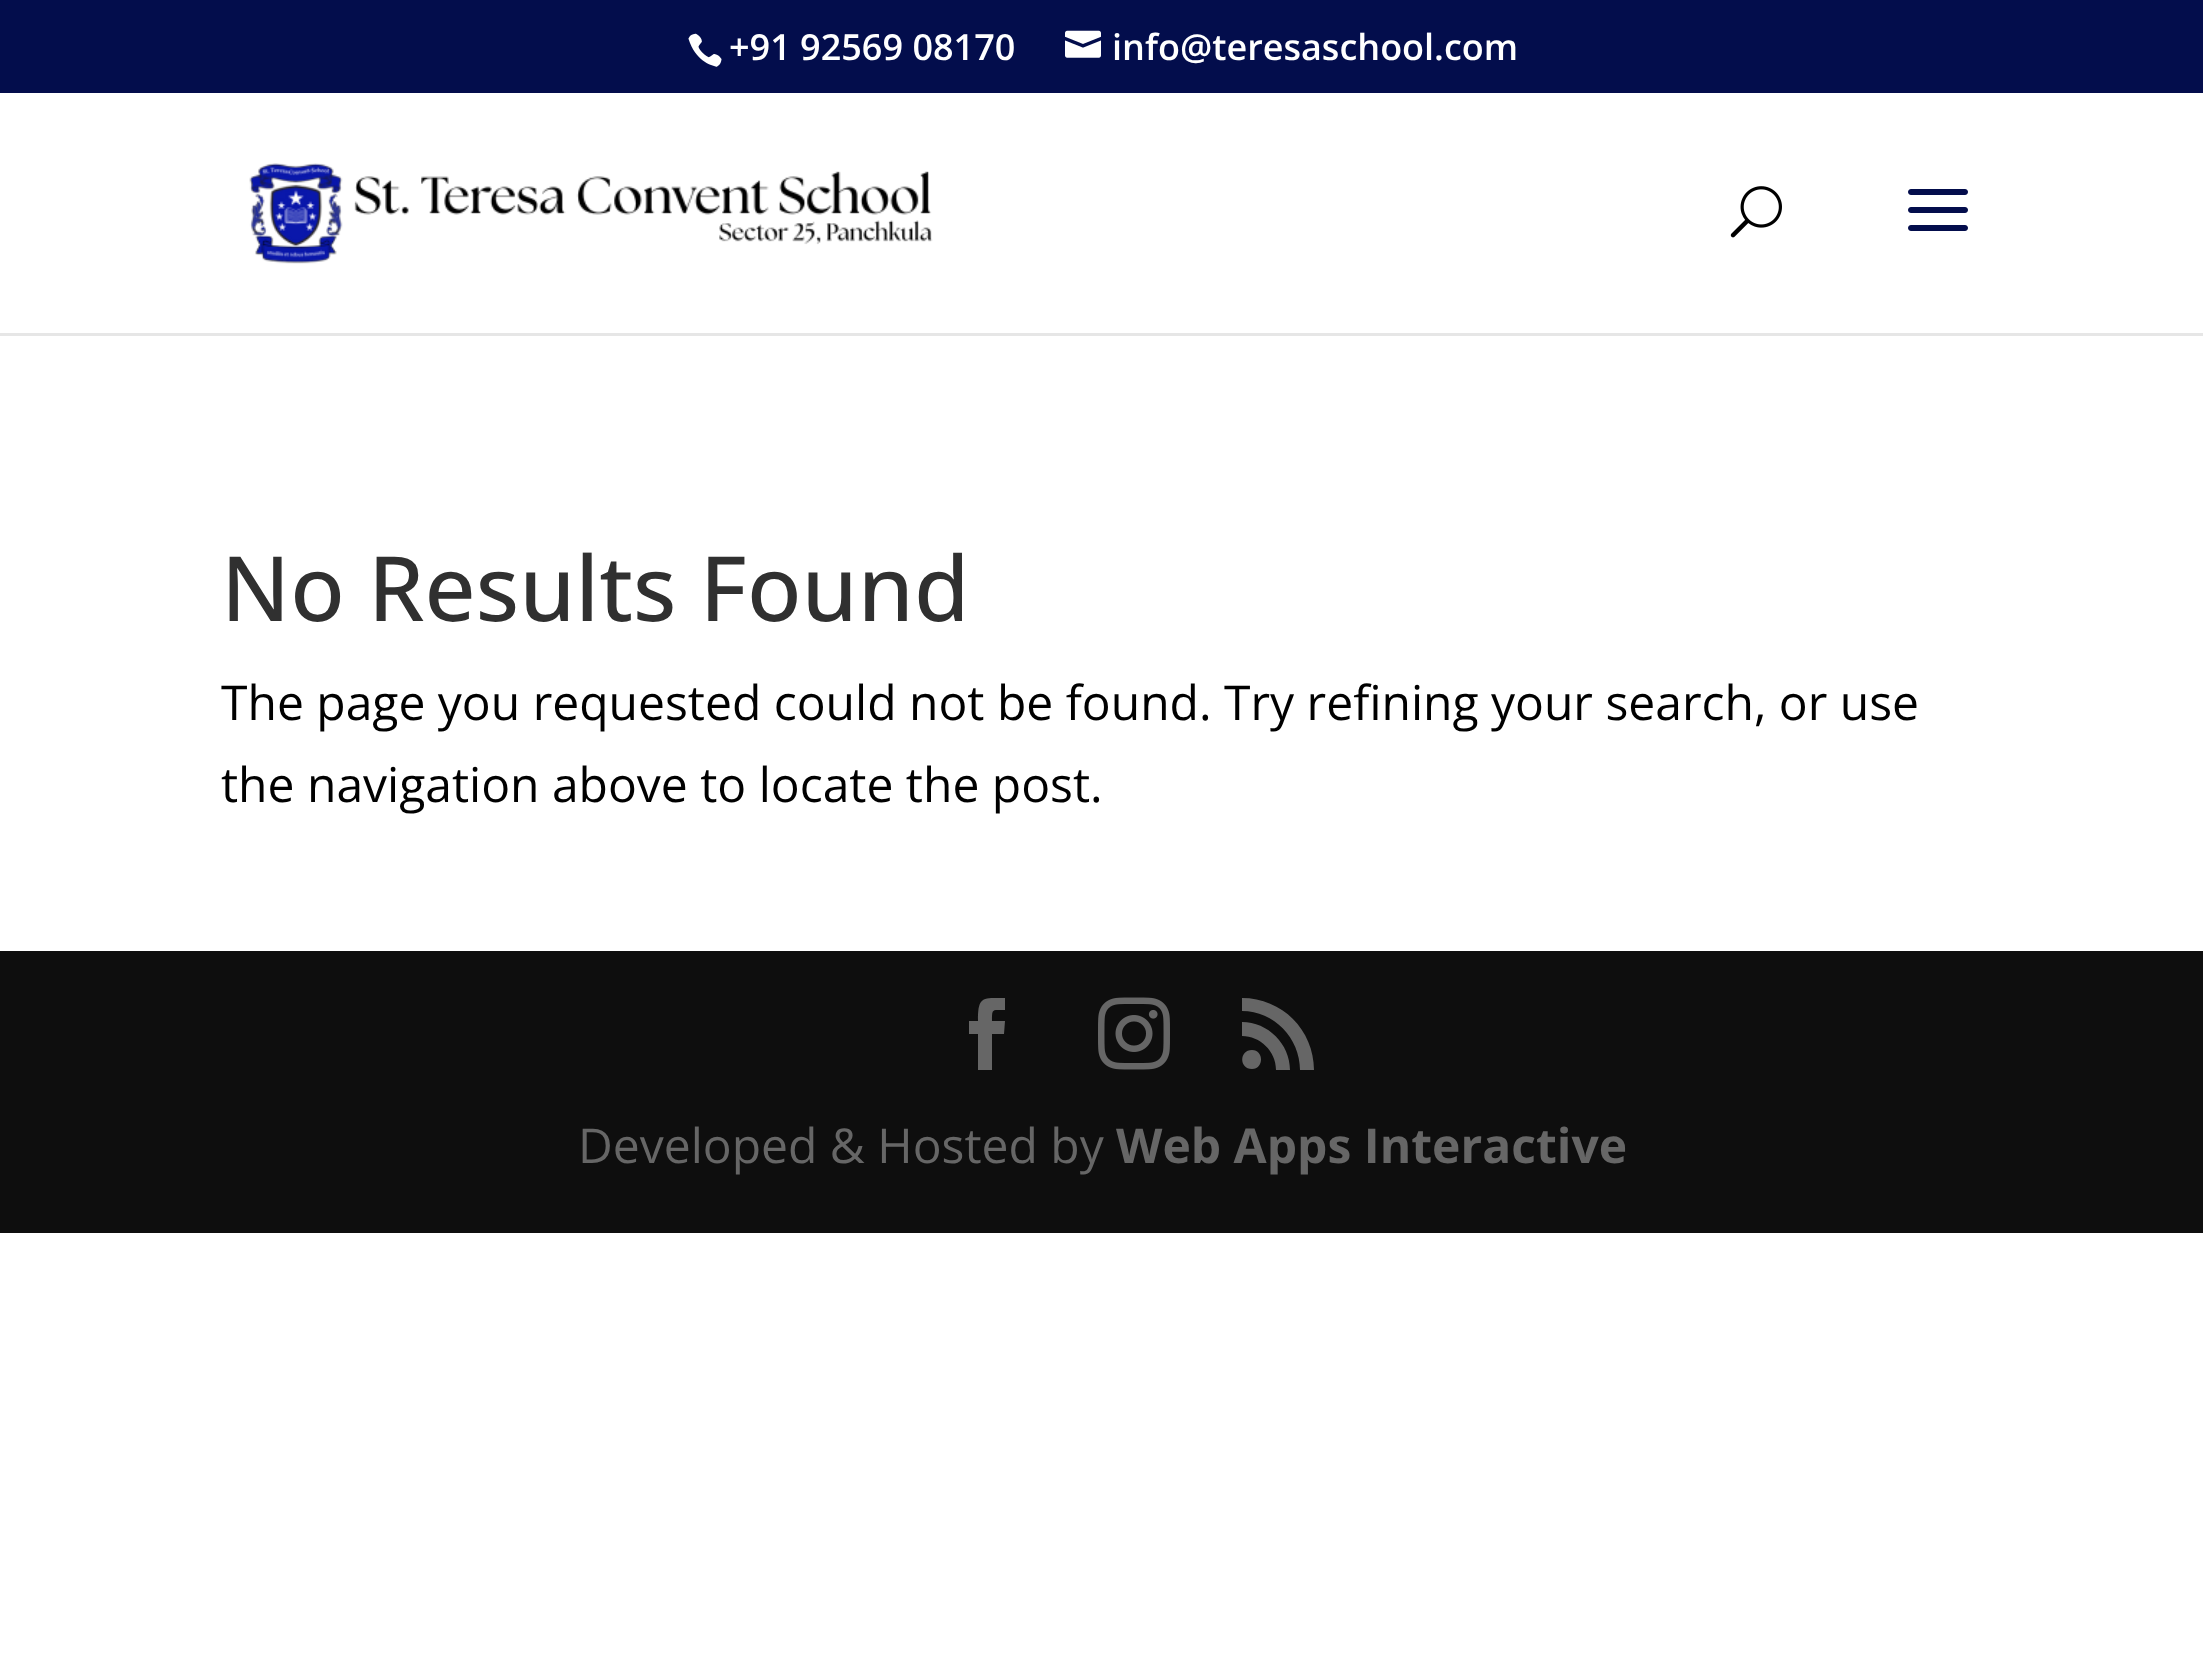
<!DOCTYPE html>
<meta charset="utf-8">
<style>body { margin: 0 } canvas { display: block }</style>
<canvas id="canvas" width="2203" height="1658"></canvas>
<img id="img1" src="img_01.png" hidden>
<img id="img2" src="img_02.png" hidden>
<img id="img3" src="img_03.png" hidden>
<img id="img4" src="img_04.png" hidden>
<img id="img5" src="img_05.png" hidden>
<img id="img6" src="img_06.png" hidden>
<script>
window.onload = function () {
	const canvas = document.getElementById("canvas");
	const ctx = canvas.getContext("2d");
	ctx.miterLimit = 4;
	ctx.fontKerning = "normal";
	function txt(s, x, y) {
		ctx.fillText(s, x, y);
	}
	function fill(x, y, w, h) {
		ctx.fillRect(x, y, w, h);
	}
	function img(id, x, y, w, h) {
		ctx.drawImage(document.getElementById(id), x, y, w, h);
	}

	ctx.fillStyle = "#FFFFFF";
	fill(0, 0, 2203, 1658);
	ctx.fillStyle = "#030D4C";
	fill(0, 0, 2203, 93);
	img("img1", 688, 33, 34, 34);
	img("img2", 1065, 30, 36, 28);
	ctx.fillStyle = "#E6E6E6";
	fill(0, 333, 2203, 3);
	img("img3", 249, 163, 684, 101);
	img("img4", 1730, 186, 52, 52);
	img("img5", 1908, 189, 60, 42);
	ctx.fillStyle = "#0E0E0E";
	fill(0, 951, 2203, 282);
	ctx.fillStyle = "#666666";
	ctx.beginPath();
	ctx.moveTo(978, 1070);
	ctx.lineTo(992, 1070);
	ctx.lineTo(992, 1034);
	ctx.lineTo(1004, 1034);
	ctx.lineTo(1005, 1021);
	ctx.lineTo(992, 1021);
	ctx.bezierCurveTo(992, 1008, 992, 1010, 1005, 1010);
	ctx.lineTo(1005, 998);
	ctx.bezierCurveTo(982, 998, 978, 996, 978, 1021);
	ctx.lineTo(969, 1021);
	ctx.lineTo(969, 1034);
	ctx.lineTo(978, 1034);
	ctx.closePath();
	ctx.fill();
	img("img6", 1098, 997, 72, 73);
	ctx.beginPath();
	ctx.moveTo(1242, 998);
	ctx.lineTo(1242, 1011);
	ctx.bezierCurveTo(1274, 1011, 1300, 1038, 1300, 1070);
	ctx.lineTo(1314, 1070);
	ctx.bezierCurveTo(1314, 1030, 1282, 998, 1242, 998);
	ctx.closePath();
	ctx.moveTo(1276, 1070);
	ctx.lineTo(1290, 1070);
	ctx.bezierCurveTo(1290, 1044, 1268, 1022, 1242, 1022);
	ctx.lineTo(1242, 1036);
	ctx.bezierCurveTo(1260, 1036, 1276, 1051, 1276, 1070);
	ctx.closePath();
	ctx.moveTo(1252, 1069);
	ctx.bezierCurveTo(1264, 1069, 1264, 1050, 1252, 1050);
	ctx.bezierCurveTo(1239, 1050, 1239, 1069, 1252, 1069);
	ctx.closePath();
	ctx.fill();
	ctx.font = "600 36px Open Sans";
	ctx.fillStyle = "#FFFFFF";
	txt("+91 92569 08170", 729, 60);
	txt("info@teresaschool.com", 1112, 60);
	ctx.font = "500 90px Open Sans";
	ctx.fillStyle = "#303030";
	txt("No Results Found", 221, 621);
	ctx.font = "48px Open Sans";
	ctx.fillStyle = "#000000";
	txt("The page you requested could not be found. Try refining your search, or use", 221, 720);
	txt("the navigation above to locate the post.", 221, 802);
	ctx.fillStyle = "#666666";
	txt("Developed & Hosted by", 578, 1163);
	ctx.font = "bold 48px Open Sans";
	txt("Web Apps Interactive", 1116, 1163);
};
</script>
